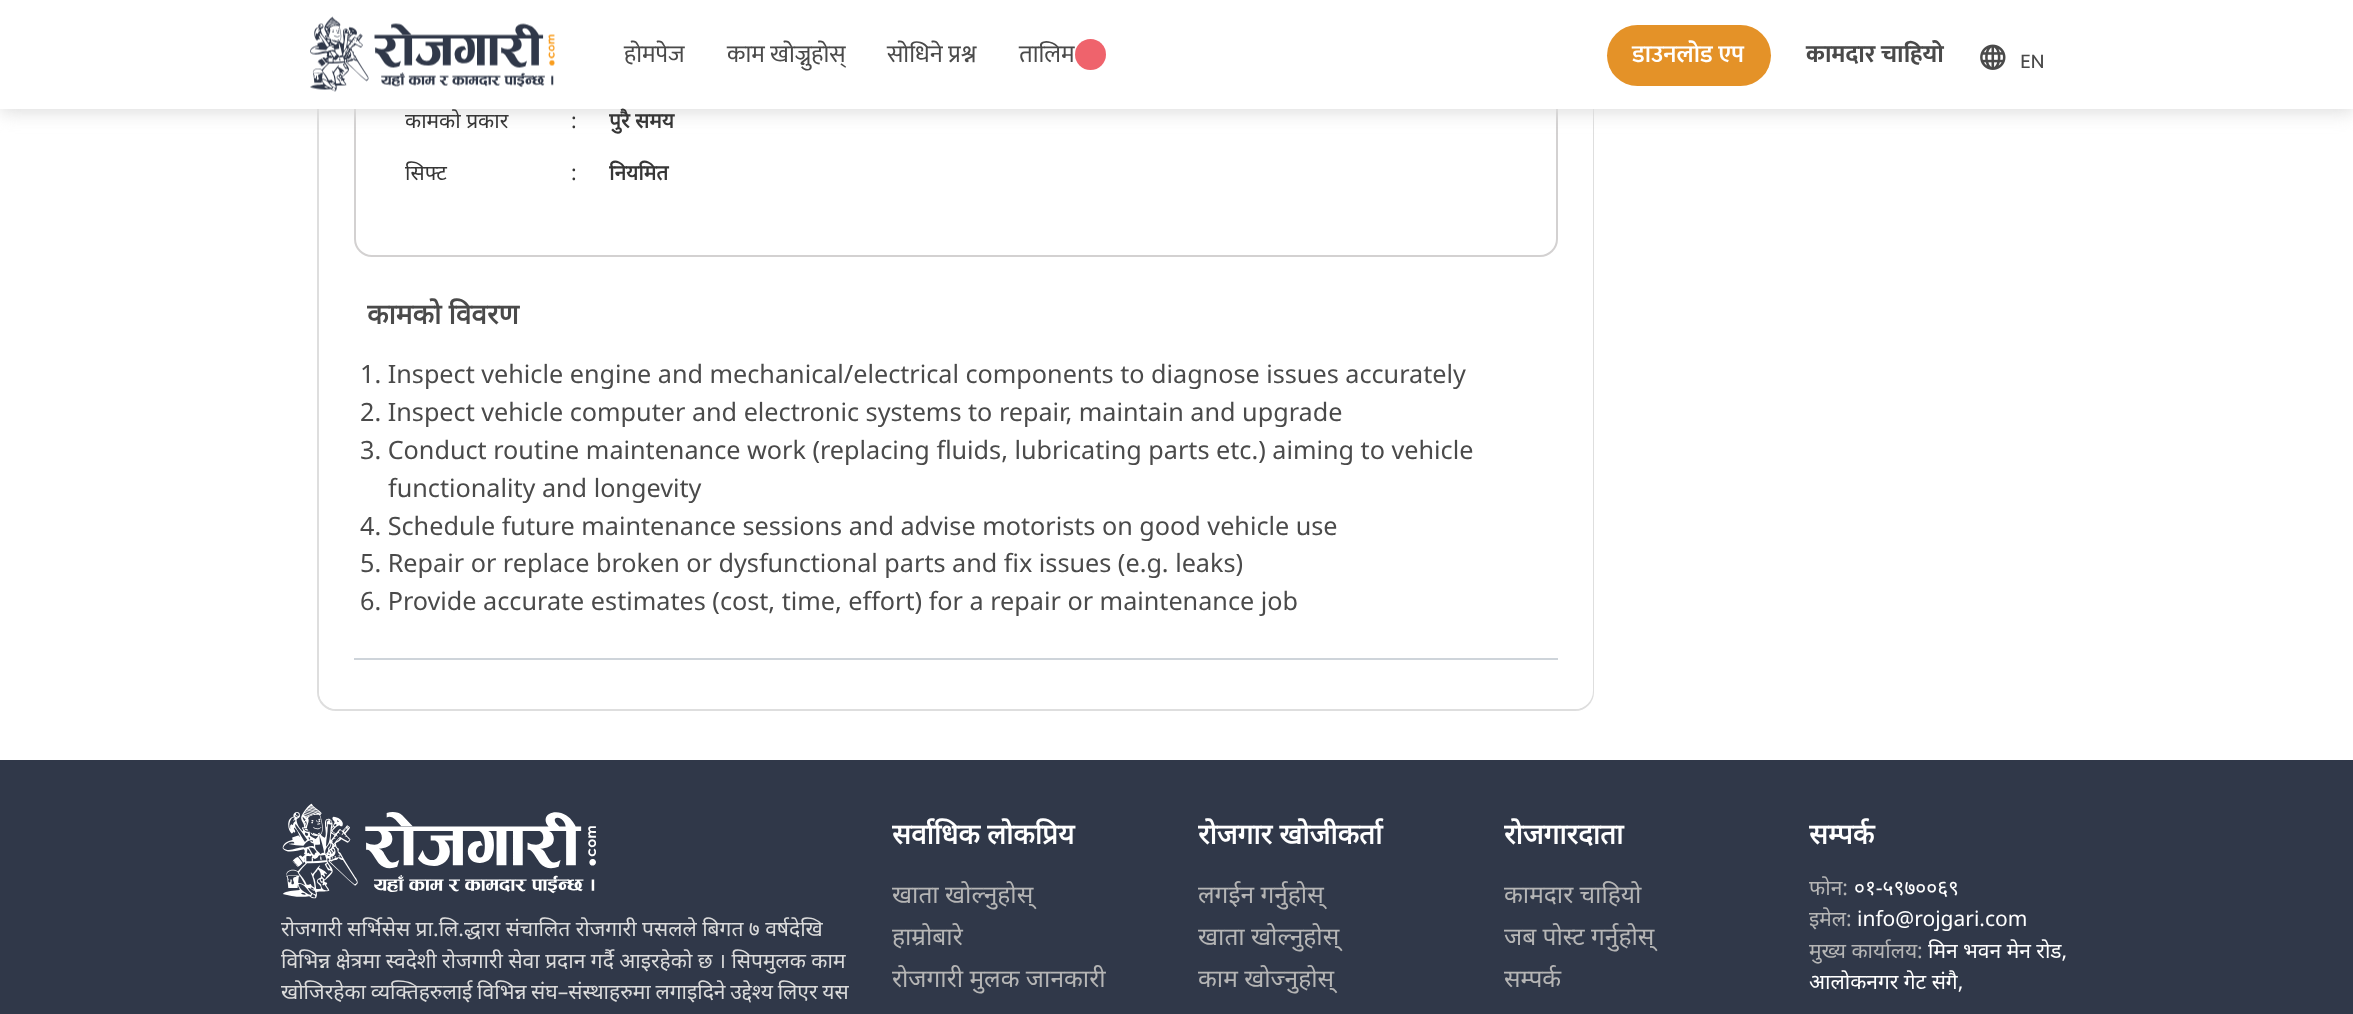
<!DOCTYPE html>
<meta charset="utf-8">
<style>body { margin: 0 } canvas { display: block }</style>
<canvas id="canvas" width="2353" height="1014"></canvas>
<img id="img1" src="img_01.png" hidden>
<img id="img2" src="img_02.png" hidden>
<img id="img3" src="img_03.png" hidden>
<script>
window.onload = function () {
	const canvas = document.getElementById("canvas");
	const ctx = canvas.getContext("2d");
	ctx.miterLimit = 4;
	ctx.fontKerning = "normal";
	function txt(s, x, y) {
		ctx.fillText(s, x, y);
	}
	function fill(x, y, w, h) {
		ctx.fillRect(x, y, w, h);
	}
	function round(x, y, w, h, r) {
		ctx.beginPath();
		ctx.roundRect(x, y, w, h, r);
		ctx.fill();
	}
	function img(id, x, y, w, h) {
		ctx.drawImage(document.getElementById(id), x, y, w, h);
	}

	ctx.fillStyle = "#FFFFFF";
	fill(0, 0, 2353, 1014);
	ctx.beginPath();
	ctx.roundRect(318, -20, 1275, 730, 18);
	ctx.strokeStyle = "#DEDEDE";
	ctx.lineWidth = 2;
	ctx.stroke();
	round(319, -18, 1274, 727, 18);
	ctx.beginPath();
	ctx.roundRect(355, -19, 1202, 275, 17);
	ctx.strokeStyle = "#D3D1D1";
	ctx.stroke();
	ctx.fillStyle = "#DCDCDC";
	ctx.filter = "blur(9px)";
	ctx.beginPath();
	ctx.rect(0, 4, 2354, 108);
	ctx.fill();
	ctx.filter = "none";
	ctx.fillStyle = "#FFFFFF";
	fill(0, 0, 2353, 109);
	img("img1", 310, 16, 245, 76);
	ctx.fillStyle = "#EF636C";
	ctx.beginPath();
	ctx.arc(1090.5, 54.5, 15.5, 0, Math.PI * 2);
	ctx.fill();
	ctx.fillStyle = "#E49228";
	round(1607, 25, 164, 61, 30.5);
	img("img2", 1980, 44, 26, 26);
	ctx.fillStyle = "#CED4DA";
	fill(354, 658, 1204, 2);
	ctx.fillStyle = "#303849";
	fill(0, 760, 2353, 254);
	img("img3", 282, 803, 314, 96);
	ctx.font = "24.5px Mukta";
	ctx.fillStyle = "#4A4A4A";
	txt("होमपेज", 624, 62);
	txt("काम खोज्नुहोस्", 727, 62);
	txt("सोधिने प्रश्न", 887, 62);
	txt("तालिम", 1019, 62);
	ctx.font = "600 24.5px Mukta";
	ctx.fillStyle = "#FFFFFF";
	txt("डाउनलोड एप", 1632, 62);
	ctx.font = "bold 24.5px Mukta";
	ctx.fillStyle = "#4A4A4A";
	txt("कामदार चाहियो", 1806, 62);
	ctx.font = "21px Mukta";
	txt("EN", 2020, 68);
	ctx.font = "21px Noto Sans";
	ctx.fillStyle = "#363636";
	txt("कामको प्रकार", 405, 128);
	txt(":", 571, 128);
	ctx.font = "bold 21px Noto Sans";
	txt("पुरै समय", 609, 128);
	ctx.font = "21px Noto Sans";
	txt("सिफ्ट", 405, 180);
	txt(":", 571, 180);
	ctx.font = "bold 21px Noto Sans";
	txt("नियमित", 609, 180);
	ctx.font = "bold 28px Noto Sans";
	ctx.fillStyle = "#4A4A4A";
	txt("कामको विवरण", 367, 324);
	ctx.font = "25.2px Noto Sans";
	txt("1. Inspect vehicle engine and mechanical/electrical components to diagnose issues accurately", 360, 383);
	txt("2. Inspect vehicle computer and electronic systems to repair, maintain and upgrade", 360, 421);
	txt("3. Conduct routine maintenance work (replacing fluids, lubricating parts etc.) aiming to vehicle", 360, 459);
	txt("functionality and longevity", 388, 497);
	txt("4. Schedule future maintenance sessions and advise motorists on good vehicle use", 360, 535);
	txt("5. Repair or replace broken or dysfunctional parts and fix issues (e.g. leaks)", 360, 572);
	txt("6. Provide accurate estimates (cost, time, effort) for a repair or maintenance job", 360, 610);
	ctx.font = "21px Noto Sans";
	ctx.fillStyle = "#DBDBDB";
	txt("रोजगारी सर्भिसेस प्रा.लि.द्धारा संचालित रोजगारी पसलले बिगत ७ वर्षदेखि", 281, 936);
	txt("विभिन्न क्षेत्रमा स्वदेशी रोजगारी सेवा प्रदान गर्दै आइरहेको छ । सिपमुलक काम", 281, 968);
	ctx.wordSpacing = "-0.75px";
	txt("खोजिरहेका व्यक्तिहरुलाई विभिन्न संघ–संस्थाहरुमा लगाइदिने उद्देश्य लिएर यस", 281, 999);
	ctx.wordSpacing = "0px";
	ctx.font = "bold 28px Noto Sans";
	ctx.fillStyle = "#FFFFFF";
	txt("सर्वाधिक लोकप्रिय", 892, 844);
	ctx.font = "24.5px Noto Sans";
	ctx.fillStyle = "#B5B5B5";
	txt("खाता खोल्नुहोस्", 892, 903);
	txt("हाम्रोबारे", 892, 945);
	txt("रोजगारी मुलक जानकारी", 892, 987);
	ctx.font = "bold 28px Noto Sans";
	ctx.fillStyle = "#FFFFFF";
	txt("रोजगार खोजीकर्ता", 1198, 844);
	ctx.font = "24.5px Noto Sans";
	ctx.fillStyle = "#B5B5B5";
	txt("लगईन गर्नुहोस्", 1198, 903);
	txt("खाता खोल्नुहोस्", 1198, 945);
	txt("काम खोज्नुहोस्", 1198, 987);
	ctx.font = "bold 28px Noto Sans";
	ctx.fillStyle = "#FFFFFF";
	txt("रोजगारदाता", 1504, 844);
	ctx.font = "24.5px Noto Sans";
	ctx.fillStyle = "#B5B5B5";
	txt("कामदार चाहियो", 1504, 903);
	txt("जब पोस्ट गर्नुहोस्", 1504, 945);
	txt("सम्पर्क", 1504, 987);
	ctx.font = "bold 28px Noto Sans";
	ctx.fillStyle = "#FFFFFF";
	txt("सम्पर्क", 1809, 844);
	ctx.font = "21px Noto Sans";
	ctx.fillStyle = "#B5B5B5";
	txt("फोन:", 1809, 895);
	ctx.fillStyle = "#FFFFFF";
	txt("०१-५९७००६९", 1854, 895);
	ctx.fillStyle = "#B5B5B5";
	txt("इमेल:", 1809, 926);
	ctx.fillStyle = "#FFFFFF";
	txt("info@rojgari.com", 1857, 926);
	ctx.fillStyle = "#B5B5B5";
	txt("मुख्य कार्यालय:", 1809, 958);
	ctx.fillStyle = "#FFFFFF";
	txt("मिन भवन मेन रोड,", 1928, 958);
	txt("आलोकनगर गेट संगै,", 1809, 989);
};
</script>
